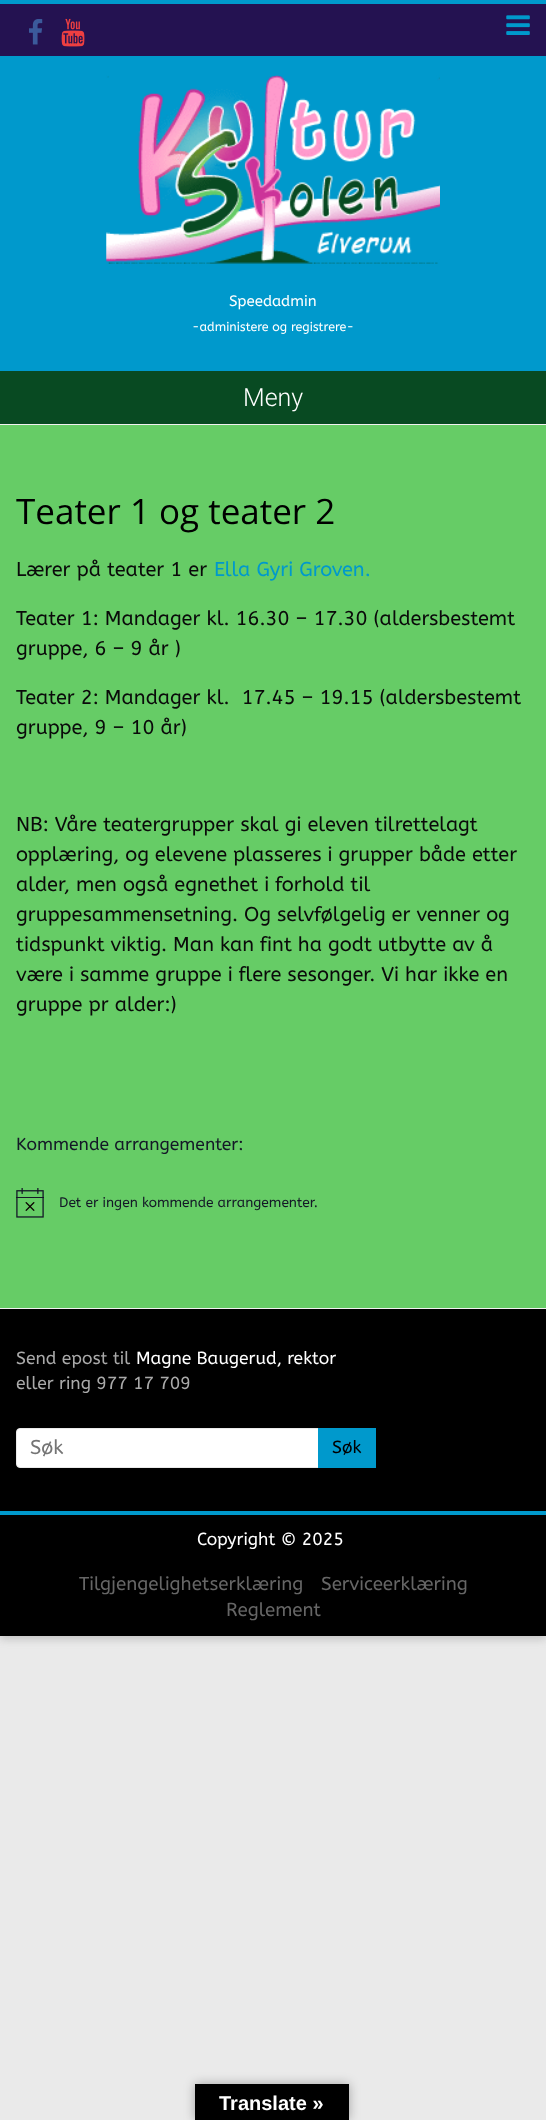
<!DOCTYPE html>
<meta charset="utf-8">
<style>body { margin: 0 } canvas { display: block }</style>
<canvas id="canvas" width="546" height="2120"></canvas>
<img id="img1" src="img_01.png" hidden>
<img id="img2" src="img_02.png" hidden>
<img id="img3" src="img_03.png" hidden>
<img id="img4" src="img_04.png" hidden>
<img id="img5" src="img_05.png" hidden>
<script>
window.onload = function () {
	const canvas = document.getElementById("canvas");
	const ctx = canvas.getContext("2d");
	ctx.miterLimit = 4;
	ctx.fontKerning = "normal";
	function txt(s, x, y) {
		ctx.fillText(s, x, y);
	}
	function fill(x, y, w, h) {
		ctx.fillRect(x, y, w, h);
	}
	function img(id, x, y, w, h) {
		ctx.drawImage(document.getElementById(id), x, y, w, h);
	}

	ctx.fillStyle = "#EAEAEA";
	fill(0, 0, 546, 2120);
	ctx.fillStyle = "rgba(100, 100, 100, 0.3)";
	ctx.filter = "blur(4px)";
	ctx.beginPath();
	ctx.rect(0, 3, 546, 1636);
	ctx.fill();
	ctx.filter = "none";
	ctx.fillStyle = "#0099CC";
	fill(0, 0, 546, 4);
	ctx.fillStyle = "#241251";
	fill(0, 4, 546, 52);
	img("img1", 29, 19, 14, 26);
	img("img2", 61, 18, 24, 29);
	img("img3", 506, 15, 24, 20);
	ctx.fillStyle = "#0099CC";
	fill(0, 56, 546, 315);
	ctx.fillStyle = "#F2F2F2";
	fill(0, 424, 546, 1);
	img("img4", 106, 75, 334, 189);
	ctx.fillStyle = "#084A22";
	fill(0, 371, 546, 53);
	ctx.fillStyle = "#66CC66";
	fill(0, 425, 546, 883);
	img("img5", 16, 1188, 28, 30);
	ctx.fillStyle = "#000000";
	fill(0, 1309, 546, 202);
	ctx.fillStyle = "#F2F2F2";
	fill(0, 1308, 546, 1);
	ctx.fillStyle = "#FFFFFF";
	ctx.beginPath();
	ctx.roundRect(16.5, 1428.5, 308, 39, 3.5);
	ctx.fill();
	ctx.strokeStyle = "#EAEAEA";
	ctx.stroke();
	ctx.fillStyle = "#0099CC";
	fill(318, 1428, 58, 40);
	ctx.fillStyle = "#000000";
	fill(0, 1515, 546, 121);
	ctx.fillStyle = "#0099CC";
	fill(0, 1511, 546, 4);
	ctx.fillStyle = "rgba(0, 0, 0, 0.3)";
	ctx.filter = "blur(5.5px)";
	ctx.beginPath();
	ctx.rect(195, 2084, 154, 36);
	ctx.fill();
	ctx.filter = "none";
	ctx.fillStyle = "#000000";
	fill(195, 2084, 154, 36);
	ctx.font = "15px ABeeZee";
	ctx.fillStyle = "#FFFFFF";
	txt("Speedadmin", 229, 306);
	ctx.font = "12.5px ABeeZee";
	txt("-administere og registrere-", 192, 331);
	ctx.font = "300 25px Roboto";
	txt("Meny", 243, 406);
	ctx.font = "35px Open Sans";
	ctx.fillStyle = "#000000";
	txt("Teater 1 og teater 2", 16, 524);
	ctx.font = "20px ABeeZee";
	ctx.fillStyle = "#0A0A0A";
	txt("Lærer på teater 1 er", 16, 576);
	ctx.fillStyle = "#0099CC";
	txt("Ella Gyri Groven.", 214, 576);
	ctx.fillStyle = "#0A0A0A";
	txt("Teater 1: Mandager kl. 16.30 – 17.30 (aldersbestemt", 16, 625);
	txt("gruppe, 6 – 9 år )", 16, 655);
	txt("Teater 2: Mandager kl.  17.45 – 19.15 (aldersbestemt", 16, 704);
	txt("gruppe, 9 – 10 år)", 16, 734);
	txt("NB: Våre teatergrupper skal gi eleven tilrettelagt", 16, 831);
	txt("opplæring, og elevene plasseres i grupper både etter", 16, 861);
	txt("alder, men også egnethet i forhold til", 16, 891);
	txt("gruppesammensetning. Og selvfølgelig er venner og", 16, 921);
	txt("tidspunkt viktig. Man kan fint ha godt utbytte av å", 16, 951);
	txt("være i samme gruppe i flere sesonger. Vi har ikke en", 16, 981);
	txt("gruppe pr alder:)", 16, 1011);
	ctx.font = "17.5px ABeeZee";
	ctx.fillStyle = "#141827";
	txt("Kommende arrangementer:", 16, 1150);
	ctx.font = "13.75px ABeeZee";
	txt("Det er ingen kommende arrangementer.", 59, 1207);
	ctx.font = "17.5px ABeeZee";
	ctx.fillStyle = "#AAAAAA";
	txt("Send epost til", 16, 1364);
	ctx.fillStyle = "#FFFFFF";
	txt("Magne Baugerud, rektor", 136, 1364);
	ctx.fillStyle = "#AAAAAA";
	txt("eller ring 977 17 709", 16, 1389);
	ctx.font = "20px ABeeZee";
	ctx.fillStyle = "#757575";
	txt("Søk", 30, 1454);
	ctx.font = "17.5px ABeeZee";
	ctx.fillStyle = "#000000";
	txt("Søk", 332, 1453);
	ctx.fillStyle = "#FFFFFF";
	txt("Copyright © 2025", 197, 1545);
	ctx.font = "18.75px ABeeZee";
	ctx.fillStyle = "#666666";
	txt("Tilgjengelighetserklæring", 79, 1590);
	txt("Serviceerklæring", 321, 1590);
	txt("Reglement", 226, 1616);
	ctx.font = "bold 20px Liberation Sans";
	ctx.fillStyle = "#FFFFFF";
	txt("Translate »", 219, 2110);
};
</script>
